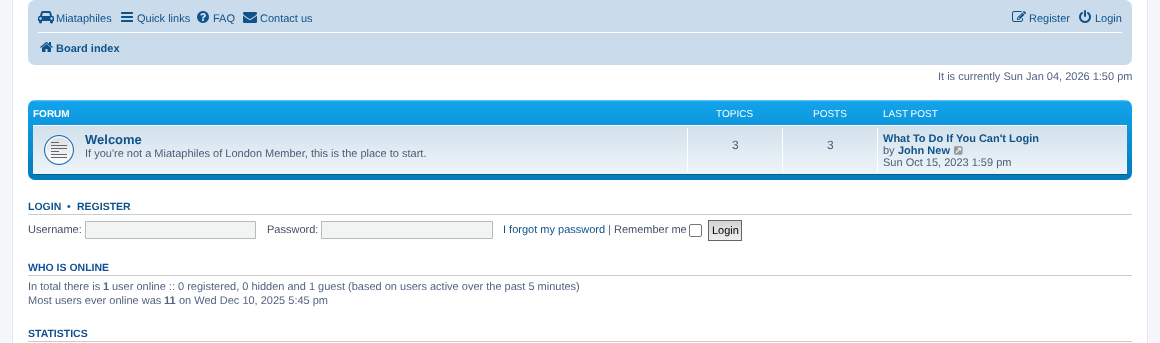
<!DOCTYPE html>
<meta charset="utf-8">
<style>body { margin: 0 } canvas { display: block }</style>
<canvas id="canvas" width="1160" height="343"></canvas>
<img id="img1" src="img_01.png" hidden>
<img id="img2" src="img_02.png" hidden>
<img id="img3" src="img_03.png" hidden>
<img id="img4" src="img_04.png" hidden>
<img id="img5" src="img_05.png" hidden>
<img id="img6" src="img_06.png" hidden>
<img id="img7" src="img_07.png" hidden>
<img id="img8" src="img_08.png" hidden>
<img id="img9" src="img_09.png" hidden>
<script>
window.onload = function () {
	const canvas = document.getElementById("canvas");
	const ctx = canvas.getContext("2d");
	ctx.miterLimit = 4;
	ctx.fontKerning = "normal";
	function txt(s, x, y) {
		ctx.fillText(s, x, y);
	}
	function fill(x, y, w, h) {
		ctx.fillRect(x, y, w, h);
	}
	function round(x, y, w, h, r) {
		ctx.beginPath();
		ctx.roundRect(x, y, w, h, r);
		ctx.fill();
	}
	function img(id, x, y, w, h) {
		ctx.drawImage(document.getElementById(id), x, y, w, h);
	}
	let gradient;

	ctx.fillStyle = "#F5F7FA";
	fill(0, 0, 1160, 343);
	ctx.fillStyle = "#FFFFFF";
	ctx.beginPath();
	ctx.rect(12.5, -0.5, 1135, 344);
	ctx.fill();
	ctx.strokeStyle = "#E6E9ED";
	ctx.stroke();
	ctx.fillStyle = "#CADCEB";
	round(28, 0, 1104, 65, 7);
	img("img1", 38, 11, 16, 13);
	img("img2", 121, 12, 12, 10);
	img("img3", 197, 11, 12, 12);
	img("img4", 243, 12, 14, 11);
	img("img5", 1012, 11, 14, 11);
	img("img6", 1079, 10, 12, 13);
	ctx.fillStyle = "#FFFFFF";
	fill(38, 32, 1084, 1);
	img("img7", 40, 42, 13, 10);
	gradient = ctx.createLinearGradient(580, 100, 580, 192);
	gradient.addColorStop(0, "#6ACEFF");
	gradient.addColorStop(0.02, "#12A3EB");
	gradient.addColorStop(1, "#0076B1");
	ctx.fillStyle = gradient;
	round(28, 100, 1104, 80, 7);
	gradient = ctx.createLinearGradient(580, 125, 580, 175);
	gradient.addColorStop(0, "#D2E0EB");
	gradient.addColorStop(1, "#EEF5F9");
	ctx.fillStyle = gradient;
	fill(33, 126, 1094, 48);
	ctx.fillStyle = "#FFFFFF";
	fill(33, 125, 1094, 1);
	ctx.fillStyle = "#00608F";
	fill(33, 174, 1094, 1);
	img("img8", 44, 135, 30, 30);
	ctx.fillStyle = "#FFFFFF";
	fill(687, 128, 1, 44);
	fill(782, 128, 1, 44);
	fill(877, 128, 1, 44);
	img("img9", 954, 146, 9, 9);
	ctx.fillStyle = "#CCCCCC";
	fill(28, 214, 1104, 1);
	ctx.fillStyle = "#F2F3F3";
	ctx.beginPath();
	ctx.rect(85.5, 221.5, 170, 17);
	ctx.fill();
	ctx.strokeStyle = "#B4BAC0";
	ctx.stroke();
	ctx.beginPath();
	ctx.rect(321.5, 221.5, 171, 17);
	ctx.fill();
	ctx.stroke();
	ctx.beginPath();
	ctx.roundRect(689.5, 224.5, 12, 12, 1.5);
	ctx.strokeStyle = "#767676";
	ctx.stroke();
	gradient = ctx.createLinearGradient(725, 221, 725, 240);
	gradient.addColorStop(0, "#D2D2D2");
	gradient.addColorStop(1, "#EFEFEF");
	ctx.fillStyle = gradient;
	fill(709, 221, 32, 19);
	ctx.strokeStyle = "#666666";
	ctx.strokeRect(708.5, 220.5, 33, 20);
	ctx.fillStyle = "#CCCCCC";
	fill(28, 275, 1104, 1);
	fill(28, 341, 1104, 1);
	ctx.font = "11px Liberation Sans";
	ctx.fillStyle = "#105289";
	txt("Miataphiles", 56, 22);
	txt("Quick links", 137, 22);
	txt("FAQ", 213, 22);
	txt("Contact us", 260, 22);
	txt("Register", 1029, 22);
	txt("Login", 1095, 22);
	ctx.font = "bold 11px Liberation Sans";
	txt("Board index", 56, 52);
	ctx.font = "11px Liberation Sans";
	ctx.fillStyle = "#536482";
	txt("It is currently Sun Jan 04, 2026 1:50 pm", 938, 80);
	ctx.font = "bold 10px Liberation Sans";
	ctx.fillStyle = "#FFFFFF";
	txt("FORUM", 33, 117);
	ctx.font = "10px Liberation Sans";
	txt("TOPICS", 716, 117);
	txt("POSTS", 813, 117);
	txt("LAST POST", 883, 117);
	ctx.font = "bold 13px Liberation Sans";
	ctx.fillStyle = "#105289";
	txt("Welcome", 85, 144);
	ctx.font = "11px Liberation Sans";
	ctx.fillStyle = "#4C5D77";
	txt("If you're not a Miataphiles of London Member, this is the place to start.", 85, 157);
	ctx.font = "12px Liberation Sans";
	txt("3", 732, 149);
	txt("3", 827, 149);
	ctx.font = "bold 11px Liberation Sans";
	ctx.fillStyle = "#105289";
	txt("What To Do If You Can't Login", 883, 142);
	ctx.font = "11px Liberation Sans";
	ctx.fillStyle = "#4C5D77";
	txt("by", 883, 154);
	ctx.font = "bold 11px Liberation Sans";
	ctx.fillStyle = "#105289";
	txt("John New", 898, 154);
	ctx.font = "11px Liberation Sans";
	ctx.fillStyle = "#4C5D77";
	txt("Sun Oct 15, 2023 1:59 pm", 883, 166);
	ctx.font = "bold 10.5px Liberation Sans";
	ctx.fillStyle = "#105289";
	txt("LOGIN", 28, 210);
	ctx.fillStyle = "#115098";
	txt("•", 67, 210);
	ctx.fillStyle = "#105289";
	txt("REGISTER", 77, 210);
	ctx.font = "11px Liberation Sans";
	ctx.fillStyle = "#425067";
	txt("Username:", 28, 233);
	txt("Password:", 267, 233);
	ctx.fillStyle = "#105289";
	txt("I forgot my password", 503, 233);
	ctx.fillStyle = "#536482";
	txt("|", 608, 233);
	ctx.fillStyle = "#425067";
	txt("Remember me", 614, 233);
	ctx.fillStyle = "#000000";
	txt("Login", 712, 234);
	ctx.font = "bold 10.5px Liberation Sans";
	ctx.fillStyle = "#115098";
	txt("WHO IS ONLINE", 28, 271);
	ctx.font = "11px Liberation Sans";
	ctx.fillStyle = "#536482";
	txt("In total there is", 28, 290);
	ctx.font = "bold 11px Liberation Sans";
	txt("1", 103, 290);
	ctx.font = "11px Liberation Sans";
	txt("user online :: 0 registered, 0 hidden and 1 guest (based on users active over the past 5 minutes)", 112, 290);
	txt("Most users ever online was", 28, 304);
	ctx.font = "bold 11px Liberation Sans";
	txt("11", 164, 304);
	ctx.font = "11px Liberation Sans";
	txt("on Wed Dec 10, 2025 5:45 pm", 179, 304);
	ctx.font = "bold 10.5px Liberation Sans";
	ctx.fillStyle = "#115098";
	txt("STATISTICS", 28, 337);
};
</script>
